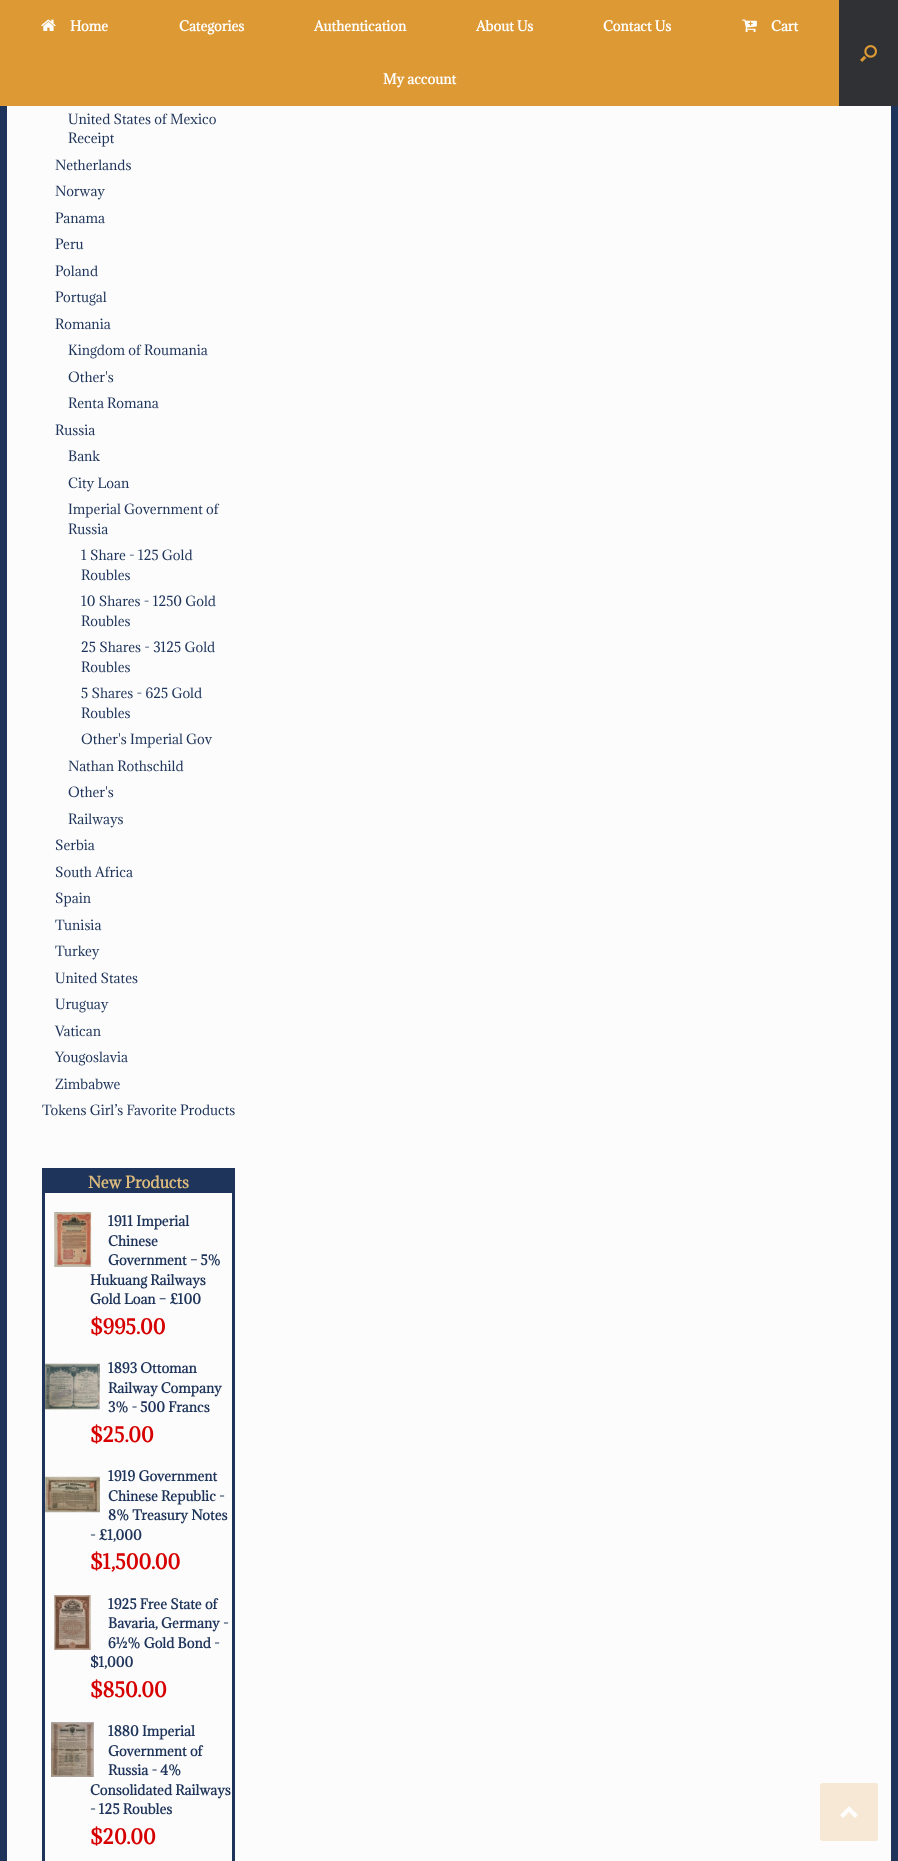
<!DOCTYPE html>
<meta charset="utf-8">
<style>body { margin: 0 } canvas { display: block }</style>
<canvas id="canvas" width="898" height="1861"></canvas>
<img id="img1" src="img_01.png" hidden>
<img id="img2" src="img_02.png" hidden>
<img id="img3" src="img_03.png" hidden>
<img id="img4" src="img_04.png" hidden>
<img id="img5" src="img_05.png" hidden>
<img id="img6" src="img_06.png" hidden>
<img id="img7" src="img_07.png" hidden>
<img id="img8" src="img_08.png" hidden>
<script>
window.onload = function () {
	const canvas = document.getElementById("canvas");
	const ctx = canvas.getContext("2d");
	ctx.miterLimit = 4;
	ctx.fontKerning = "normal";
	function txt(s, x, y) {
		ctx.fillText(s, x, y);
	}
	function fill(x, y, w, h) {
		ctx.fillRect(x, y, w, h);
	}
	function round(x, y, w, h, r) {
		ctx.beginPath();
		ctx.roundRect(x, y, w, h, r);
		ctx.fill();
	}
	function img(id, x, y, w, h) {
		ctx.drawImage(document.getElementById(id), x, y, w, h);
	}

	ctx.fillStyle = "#1E345A";
	fill(0, 0, 898, 1861);
	ctx.fillStyle = "#DD9933";
	fill(0, 0, 839, 106);
	img("img1", 41, 19, 15, 12);
	img("img2", 742, 19, 15, 14);
	ctx.fillStyle = "#303134";
	fill(839, 0, 59, 106);
	img("img3", 860, 45, 17, 17);
	ctx.fillStyle = "#FCFCFC";
	fill(7, 106, 884, 1755);
	ctx.strokeStyle = "#1E345A";
	ctx.lineWidth = 3;
	ctx.strokeRect(43.5, 1169.5, 190, 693);
	ctx.fillStyle = "#1E345A";
	fill(45, 1171, 187, 22);
	img("img4", 54, 1212, 38, 55);
	img("img5", 45, 1363, 55, 47);
	img("img6", 45, 1476, 55, 37);
	img("img7", 54, 1595, 38, 55);
	img("img8", 51, 1722, 43, 55);
	ctx.fillStyle = "#F6E8D4";
	round(820, 1783, 58, 58, 3);
	ctx.fillStyle = "#FDFDFD";
	ctx.beginPath();
	ctx.moveTo(858, 1815);
	ctx.lineTo(849, 1806);
	ctx.lineTo(840, 1815);
	ctx.lineTo(843, 1818);
	ctx.lineTo(849, 1812);
	ctx.lineTo(855, 1818);
	ctx.closePath();
	ctx.fill();
	ctx.font = "bold 13px Adamina";
	ctx.fillStyle = "#FFFFFF";
	txt("Home", 70, 31);
	txt("Categories", 179, 31);
	txt("Authentication", 314, 31);
	txt("About Us", 476, 31);
	txt("Contact Us", 603, 31);
	txt("Cart", 771, 31);
	txt("My account", 383, 84);
	ctx.font = "13px Adamina";
	ctx.fillStyle = "#1E345A";
	txt("United States of Mexico", 68, 124);
	txt("Receipt", 68, 143);
	txt("Netherlands", 55, 170);
	txt("Norway", 55, 196);
	txt("Panama", 55, 223);
	txt("Peru", 55, 249);
	txt("Poland", 55, 276);
	txt("Portugal", 55, 302);
	txt("Romania", 55, 329);
	txt("Kingdom of Roumania", 68, 355);
	txt("Other's", 68, 382);
	txt("Renta Romana", 68, 408);
	txt("Russia", 55, 435);
	txt("Bank", 68, 461);
	txt("City Loan", 68, 488);
	txt("Imperial Government of", 68, 514);
	txt("Russia", 68, 534);
	txt("1 Share - 125 Gold", 81, 560);
	txt("Roubles", 81, 580);
	txt("10 Shares - 1250 Gold", 81, 606);
	txt("Roubles", 81, 626);
	txt("25 Shares - 3125 Gold", 81, 652);
	txt("Roubles", 81, 672);
	txt("5 Shares - 625 Gold", 81, 698);
	txt("Roubles", 81, 718);
	txt("Other's Imperial Gov", 81, 744);
	txt("Nathan Rothschild", 68, 771);
	txt("Other's", 68, 797);
	txt("Railways", 68, 824);
	txt("Serbia", 55, 850);
	txt("South Africa", 55, 877);
	txt("Spain", 55, 903);
	txt("Tunisia", 55, 930);
	txt("Turkey", 55, 956);
	txt("United States", 55, 983);
	txt("Uruguay", 55, 1009);
	txt("Vatican", 55, 1036);
	txt("Yougoslavia", 55, 1062);
	txt("Zimbabwe", 55, 1089);
	txt("Tokens Girl’s Favorite Products", 42, 1115);
	ctx.font = "bold 15px Adamina";
	ctx.fillStyle = "#DDBC7E";
	txt("New Products", 88, 1188);
	ctx.font = "bold 13px Adamina";
	ctx.fillStyle = "#1E345A";
	txt("1911 Imperial", 108, 1226);
	txt("Chinese", 108, 1246);
	txt("Government – 5%", 108, 1265);
	txt("Hukuang Railways", 90, 1285);
	txt("Gold Loan – £100", 90, 1304);
	ctx.font = "bold 19px Adamina";
	ctx.fillStyle = "#D60000";
	txt("$995.00", 90, 1334);
	ctx.font = "bold 13px Adamina";
	ctx.fillStyle = "#1E345A";
	txt("1893 Ottoman", 108, 1373);
	txt("Railway Company", 108, 1393);
	txt("3% - 500 Francs", 108, 1412);
	ctx.font = "bold 19px Adamina";
	ctx.fillStyle = "#D60000";
	txt("$25.00", 90, 1442);
	ctx.font = "bold 13px Adamina";
	ctx.fillStyle = "#1E345A";
	txt("1919 Government", 108, 1481);
	txt("Chinese Republic -", 108, 1501);
	txt("8% Treasury Notes", 108, 1520);
	txt("- £1,000", 90, 1540);
	ctx.font = "bold 19px Adamina";
	ctx.fillStyle = "#D60000";
	txt("$1,500.00", 90, 1569);
	ctx.font = "bold 13px Adamina";
	ctx.fillStyle = "#1E345A";
	txt("1925 Free State of", 108, 1609);
	txt("Bavaria, Germany -", 108, 1628);
	txt("6½% Gold Bond -", 108, 1648);
	txt("$1,000", 90, 1667);
	ctx.font = "bold 19px Adamina";
	ctx.fillStyle = "#D60000";
	txt("$850.00", 90, 1697);
	ctx.font = "bold 13px Adamina";
	ctx.fillStyle = "#1E345A";
	txt("1880 Imperial", 108, 1736);
	txt("Government of", 108, 1756);
	txt("Russia - 4%", 108, 1775);
	txt("Consolidated Railways", 90, 1795);
	txt("- 125 Roubles", 90, 1814);
	ctx.font = "bold 19px Adamina";
	ctx.fillStyle = "#D60000";
	txt("$20.00", 90, 1844);
};
</script>
